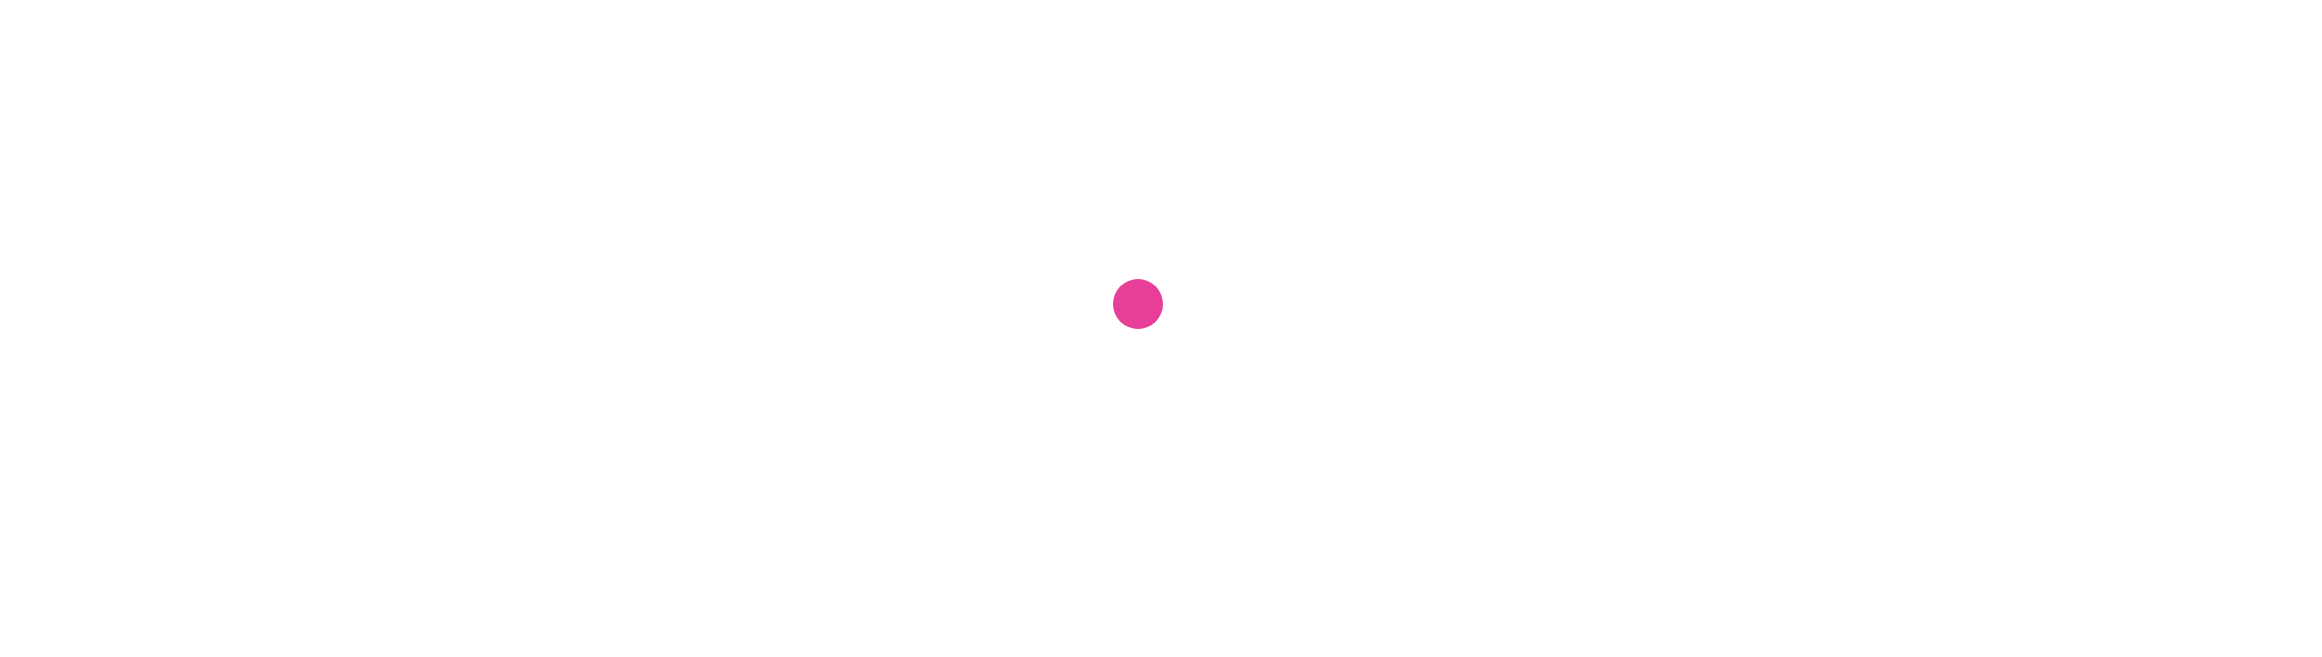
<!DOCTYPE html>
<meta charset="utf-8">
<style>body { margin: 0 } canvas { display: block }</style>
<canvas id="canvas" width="2322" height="657"></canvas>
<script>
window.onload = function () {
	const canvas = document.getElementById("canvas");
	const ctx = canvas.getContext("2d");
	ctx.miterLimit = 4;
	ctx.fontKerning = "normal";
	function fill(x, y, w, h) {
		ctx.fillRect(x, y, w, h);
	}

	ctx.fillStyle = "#FFFFFF";
	fill(0, 0, 2322, 657);
	ctx.fillStyle = "#E73F97";
	ctx.beginPath();
	ctx.arc(1138, 304, 25, 0, Math.PI * 2);
	ctx.fill();
};
</script>
